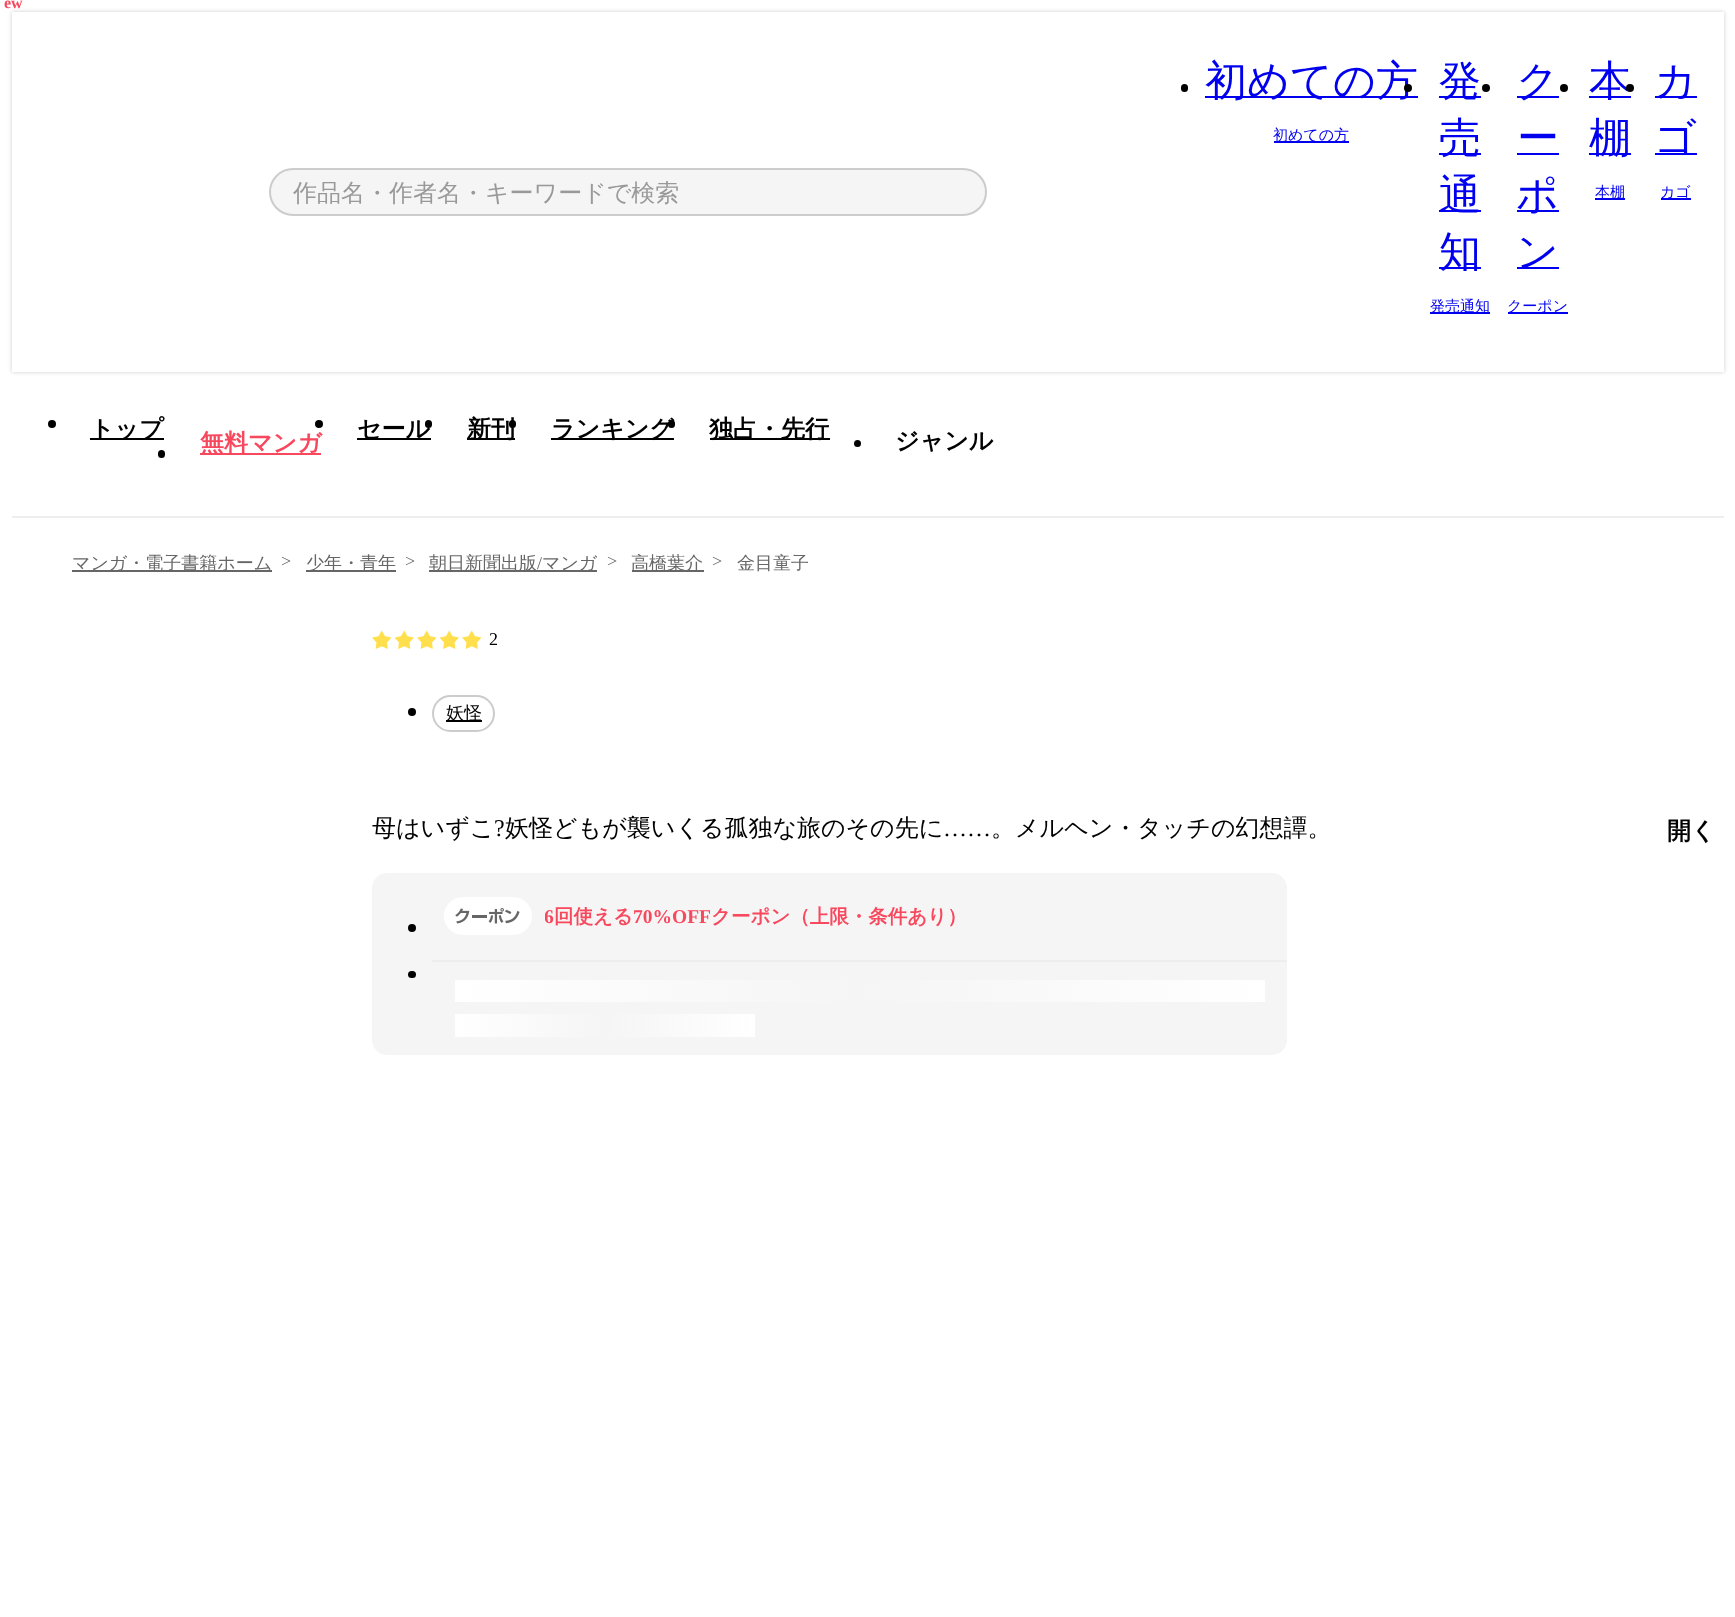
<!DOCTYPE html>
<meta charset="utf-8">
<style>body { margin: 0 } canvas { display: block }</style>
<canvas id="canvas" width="1735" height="1617"></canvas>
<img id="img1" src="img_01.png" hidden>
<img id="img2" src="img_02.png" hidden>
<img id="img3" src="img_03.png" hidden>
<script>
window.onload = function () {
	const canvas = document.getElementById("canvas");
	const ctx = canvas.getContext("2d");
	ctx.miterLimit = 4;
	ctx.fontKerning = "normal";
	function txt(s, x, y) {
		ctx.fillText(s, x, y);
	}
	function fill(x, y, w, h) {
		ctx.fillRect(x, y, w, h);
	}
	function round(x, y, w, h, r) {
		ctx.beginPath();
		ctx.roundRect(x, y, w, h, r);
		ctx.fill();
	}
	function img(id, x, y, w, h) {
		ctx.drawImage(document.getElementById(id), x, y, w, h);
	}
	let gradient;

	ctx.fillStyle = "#FFFFFF";
	fill(0, 0, 1735, 1617);
	ctx.fillStyle = "#EEEEEE";
	fill(12, 516, 1712, 2);
	ctx.fillStyle = "#F8485E";
	fill(200, 453, 121, 2);
	ctx.fillStyle = "#000000";
	round(158, 450, 7, 8, 3.5);
	ctx.beginPath();
	ctx.arc(52, 424, 4, 0, Math.PI * 2);
	ctx.fill();
	fill(90, 438, 74, 2);
	ctx.beginPath();
	ctx.arc(319, 424, 4, 0, Math.PI * 2);
	ctx.fill();
	fill(357, 438, 74, 2);
	round(425, 420, 7, 8, 3.5);
	fill(467, 438, 48, 2);
	round(509, 420, 7, 8, 3.5);
	fill(551, 438, 123, 2);
	round(668, 420, 7, 8, 3.5);
	fill(710, 438, 120, 2);
	ctx.beginPath();
	ctx.arc(857.5, 443.5, 3.5, 0, Math.PI * 2);
	ctx.fill();
	ctx.fillStyle = "rgba(0, 0, 0, 0.2)";
	ctx.filter = "blur(2px)";
	ctx.beginPath();
	ctx.rect(12, 12, 1712, 360);
	ctx.fill();
	ctx.filter = "none";
	ctx.fillStyle = "#FFFFFF";
	fill(12, 12, 1712, 360);
	ctx.fillStyle = "#F5F5F5";
	ctx.beginPath();
	ctx.roundRect(270, 169, 716, 46, 23);
	ctx.fill();
	ctx.strokeStyle = "#CCCCCC";
	ctx.lineWidth = 2;
	ctx.stroke();
	ctx.fillStyle = "#000000";
	round(1181, 84, 7, 8, 3.5);
	ctx.fillStyle = "#0000EE";
	fill(1205, 96, 213, 2);
	fill(1274, 141, 75, 2);
	fill(1439, 96, 42, 2);
	fill(1439, 153, 42, 2);
	fill(1439, 210, 42, 2);
	fill(1439, 267, 42, 2);
	fill(1430, 312, 60, 2);
	ctx.fillStyle = "#000000";
	ctx.beginPath();
	ctx.arc(1486, 88, 4, 0, Math.PI * 2);
	ctx.fill();
	ctx.fillStyle = "#0000EE";
	fill(1517, 96, 42, 2);
	fill(1517, 153, 42, 2);
	fill(1517, 210, 42, 2);
	fill(1517, 267, 42, 2);
	fill(1508, 312, 60, 2);
	ctx.fillStyle = "#000000";
	ctx.beginPath();
	ctx.arc(1564, 88, 4, 0, Math.PI * 2);
	ctx.fill();
	ctx.fillStyle = "#0000EE";
	fill(1589, 96, 42, 2);
	fill(1589, 153, 42, 2);
	fill(1595, 198, 30, 2);
	fill(1655, 96, 42, 2);
	fill(1655, 153, 42, 2);
	fill(1661, 198, 30, 2);
	ctx.fillStyle = "#666666";
	fill(72, 570, 200, 2);
	fill(306, 570, 90, 2);
	fill(429, 570, 168, 2);
	fill(632, 570, 72, 2);
	img("img1", 372, 630, 20, 19);
	img("img2", 395, 630, 19, 19);
	img("img1", 417, 630, 20, 19);
	img("img2", 440, 630, 19, 19);
	img("img1", 462, 630, 20, 19);
	ctx.fillStyle = "#000000";
	ctx.beginPath();
	ctx.arc(412, 712, 4, 0, Math.PI * 2);
	ctx.fill();
	ctx.beginPath();
	ctx.roundRect(433, 696, 61, 35, 17.5);
	ctx.stroke();
	fill(446, 720, 36, 2);
	ctx.fillStyle = "#F5F5F5";
	round(372, 873, 915, 182, 15);
	img("img3", 444, 897, 88, 38);
	ctx.fillStyle = "#000000";
	ctx.beginPath();
	ctx.arc(412, 928, 4, 0, Math.PI * 2);
	ctx.fill();
	ctx.fillStyle = "#EEEEEE";
	fill(432, 960, 855, 2);
	ctx.fillStyle = "#000000";
	round(408, 971, 8, 7, 3.5);
	gradient = ctx.createLinearGradient(455, 991, 1265, 991);
	gradient.addColorStop(0, "#FFFFFF");
	gradient.addColorStop(0.5, "#F5F5F5");
	gradient.addColorStop(1, "#FFFFFF");
	ctx.fillStyle = gradient;
	fill(455, 980, 810, 22);
	gradient = ctx.createLinearGradient(455, 1025, 755, 1025);
	gradient.addColorStop(0, "#FFFFFF");
	gradient.addColorStop(0.5, "#F5F5F5");
	gradient.addColorStop(1, "#FFFFFF");
	ctx.fillStyle = gradient;
	fill(455, 1014, 300, 23);
	ctx.font = "bold 16px Liberation Serif";
	ctx.fillStyle = "#F8485E";
	txt("ew", 4, 8);
	ctx.font = "bold 24px WenQuanYi Zen Hei";
	txt("無料マンガ", 200, 451);
	ctx.fillStyle = "#000000";
	txt("トップ", 90, 437);
	txt("セール", 357, 437);
	txt("新刊", 467, 437);
	txt("ランキング", 551, 437);
	txt("独占・先行", 709, 437);
	txt("ジャンル", 895, 449);
	ctx.font = "500 24px WenQuanYi Zen Hei";
	ctx.fillStyle = "#999999";
	txt("作品名・作者名・キーワードで検索", 293, 201);
	ctx.font = "500 42px WenQuanYi Zen Hei";
	ctx.fillStyle = "#0000EE";
	txt("初めての方", 1205, 95);
	ctx.font = "500 15px WenQuanYi Zen Hei";
	txt("初めての方", 1273, 140);
	ctx.fillStyle = "#000000";
	ctx.beginPath();
	ctx.arc(1408, 88, 4, 0, Math.PI * 2);
	ctx.fill();
	ctx.font = "500 42px WenQuanYi Zen Hei";
	ctx.fillStyle = "#0000EE";
	txt("発", 1439, 95);
	txt("売", 1439, 152);
	txt("通", 1439, 209);
	txt("知", 1439, 266);
	ctx.font = "500 15px WenQuanYi Zen Hei";
	txt("発売通知", 1430, 311);
	ctx.font = "500 42px WenQuanYi Zen Hei";
	txt("ク", 1516, 95);
	txt("ー", 1517, 152);
	txt("ポ", 1516, 209);
	txt("ン", 1516, 266);
	ctx.font = "500 15px WenQuanYi Zen Hei";
	txt("クーポン", 1507, 311);
	ctx.font = "500 42px WenQuanYi Zen Hei";
	txt("本", 1589, 95);
	txt("棚", 1589, 152);
	ctx.font = "500 15px WenQuanYi Zen Hei";
	txt("本棚", 1595, 197);
	ctx.fillStyle = "#000000";
	ctx.beginPath();
	ctx.arc(1630, 88, 4, 0, Math.PI * 2);
	ctx.fill();
	ctx.font = "500 42px WenQuanYi Zen Hei";
	ctx.fillStyle = "#0000EE";
	txt("カ", 1654, 95);
	txt("ゴ", 1654, 152);
	ctx.font = "500 15px WenQuanYi Zen Hei";
	txt("カゴ", 1660, 197);
	ctx.font = "500 18px WenQuanYi Zen Hei";
	ctx.fillStyle = "#666666";
	txt("マンガ・電子書籍ホーム", 72, 569);
	ctx.font = "18px Liberation Serif";
	txt(">", 281, 567);
	ctx.font = "500 18px WenQuanYi Zen Hei";
	txt("少年・青年", 306, 569);
	ctx.font = "18px Liberation Serif";
	txt(">", 405, 567);
	ctx.font = "500 18px WenQuanYi Zen Hei";
	txt("朝日新聞出版", 429, 569);
	ctx.font = "18px Liberation Serif";
	txt("/", 537, 569);
	ctx.font = "500 18px WenQuanYi Zen Hei";
	txt("マンガ", 542, 569);
	ctx.font = "18px Liberation Serif";
	txt(">", 607, 567);
	ctx.font = "500 18px WenQuanYi Zen Hei";
	txt("高橋葉介", 631, 569);
	ctx.font = "18px Liberation Serif";
	txt(">", 712, 567);
	ctx.font = "500 18px WenQuanYi Zen Hei";
	txt("金目童子", 737, 569);
	ctx.font = "18px Liberation Serif";
	ctx.fillStyle = "#000000";
	txt("2", 489, 645);
	ctx.font = "500 18px WenQuanYi Zen Hei";
	txt("妖怪", 446, 719);
	ctx.font = "500 24px WenQuanYi Zen Hei";
	txt("母はいずこ", 372, 836);
	ctx.font = "24px Liberation Serif";
	txt("?", 494, 836);
	ctx.font = "500 24px WenQuanYi Zen Hei";
	txt("妖怪どもが襲いくる孤独な旅のその先に", 505, 836);
	ctx.font = "24px Liberation Serif";
	txt("……", 943, 836);
	ctx.font = "500 24px WenQuanYi Zen Hei";
	txt("。メルヘン・タッチの幻想譚。", 991, 836);
	ctx.font = "bold 24px WenQuanYi Zen Hei";
	txt("開く", 1667, 839);
	ctx.save();
	ctx.beginPath();
	ctx.rect(545, 902, 718, 30);
	ctx.clip();
	ctx.font = "bold 19.5px Liberation Serif";
	ctx.fillStyle = "#F8485E";
	txt("6", 544, 923);
	ctx.restore();
	ctx.font = "bold 19.5px WenQuanYi Zen Hei";
	ctx.fillStyle = "#F8485E";
	txt("回使える", 554, 923);
	ctx.font = "bold 19.5px Liberation Serif";
	txt("70%OFF", 633, 923);
	ctx.font = "bold 19.5px WenQuanYi Zen Hei";
	txt("クーポン（上限・条件あり）", 711, 923);
};
</script>
